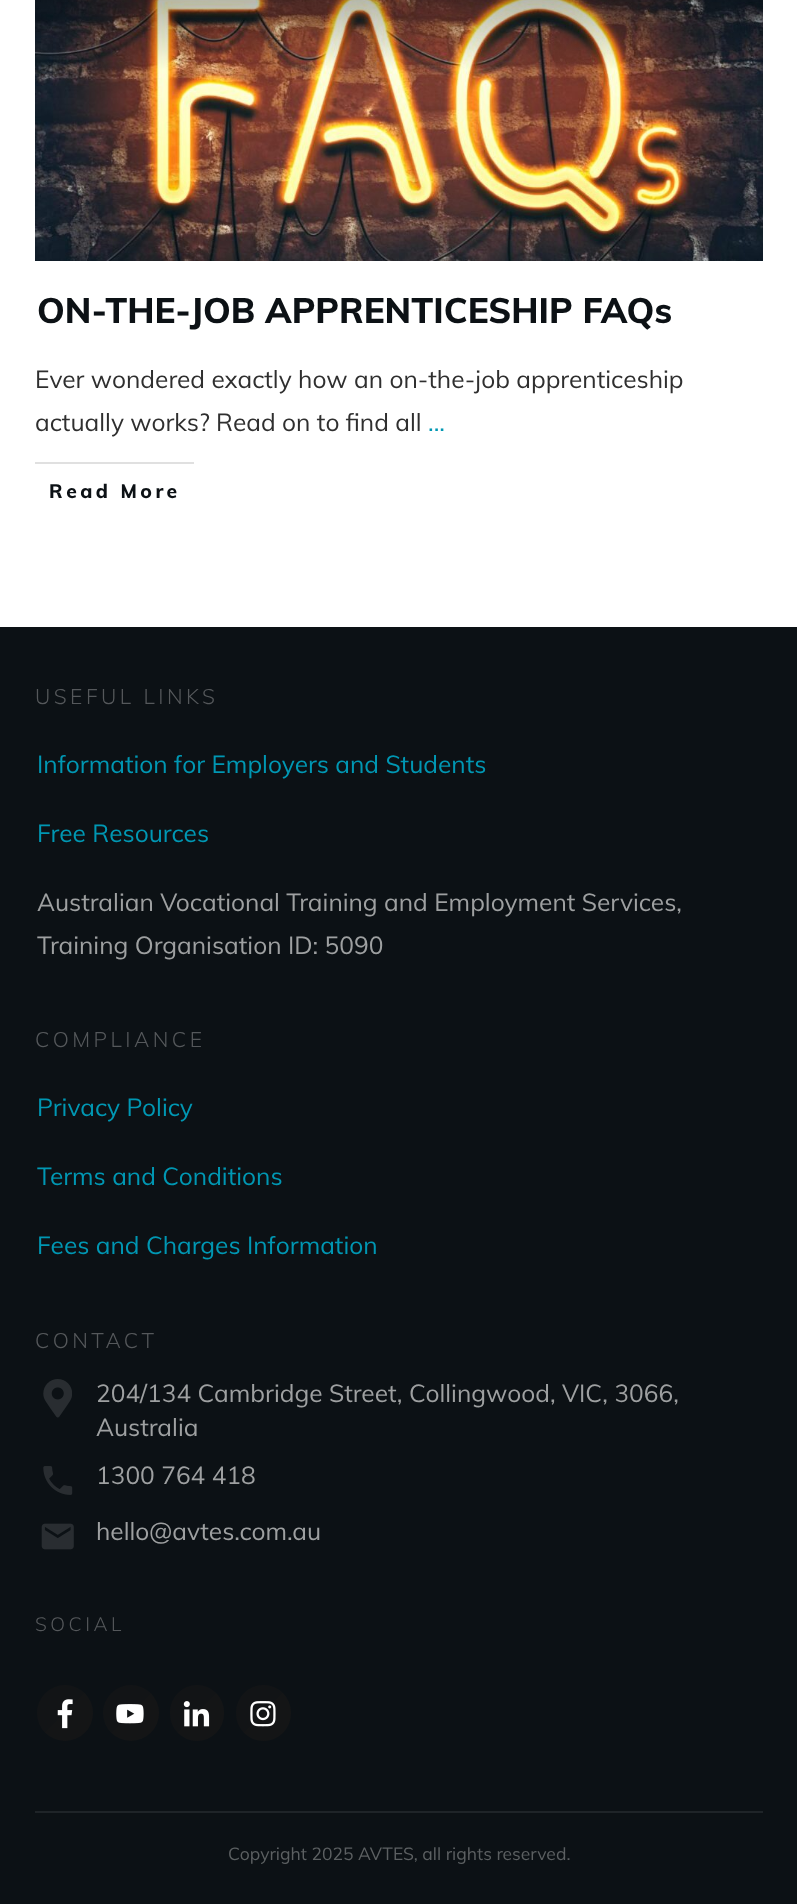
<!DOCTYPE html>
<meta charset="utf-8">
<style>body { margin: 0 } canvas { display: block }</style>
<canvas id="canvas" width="797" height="1904"></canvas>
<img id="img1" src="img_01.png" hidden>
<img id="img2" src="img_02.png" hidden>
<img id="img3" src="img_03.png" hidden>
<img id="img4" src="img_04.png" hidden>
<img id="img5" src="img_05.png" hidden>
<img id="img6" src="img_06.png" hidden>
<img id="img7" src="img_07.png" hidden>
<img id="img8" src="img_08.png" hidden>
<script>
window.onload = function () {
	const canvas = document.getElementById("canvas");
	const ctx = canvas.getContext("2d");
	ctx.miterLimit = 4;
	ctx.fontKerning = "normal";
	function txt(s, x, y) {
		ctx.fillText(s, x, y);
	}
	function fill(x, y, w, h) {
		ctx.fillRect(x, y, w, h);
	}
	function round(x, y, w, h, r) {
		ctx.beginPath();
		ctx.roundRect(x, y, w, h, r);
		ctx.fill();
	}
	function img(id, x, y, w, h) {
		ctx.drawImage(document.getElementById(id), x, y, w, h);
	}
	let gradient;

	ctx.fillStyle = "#FFFFFF";
	fill(0, 0, 797, 1904);
	img("img1", 35, 0, 728, 261);
	ctx.fillStyle = "#E0E0E0";
	fill(35, 462, 159, 2);
	ctx.fillStyle = "#0C1115";
	fill(0, 627, 797, 1277);
	ctx.fillStyle = "#1F2428";
	fill(35, 1811, 728, 2);
	img("img2", 43, 1379, 29, 39);
	img("img3", 43, 1466, 30, 29);
	img("img4", 41, 1523, 33, 27);
	gradient = ctx.createLinearGradient(37, 1685, 93, 1741);
	gradient.addColorStop(0.5, "#121416");
	gradient.addColorStop(0.5, "#141516");
	ctx.fillStyle = gradient;
	ctx.beginPath();
	ctx.arc(65, 1713, 28, 0, Math.PI * 2);
	ctx.fill();
	img("img5", 57, 1699, 16, 30);
	gradient = ctx.createLinearGradient(103, 1685, 159, 1741);
	gradient.addColorStop(0.5, "#121416");
	gradient.addColorStop(0.5, "#141516");
	ctx.fillStyle = gradient;
	ctx.beginPath();
	ctx.arc(131, 1713, 28, 0, Math.PI * 2);
	ctx.fill();
	img("img6", 116, 1704, 28, 20);
	gradient = ctx.createLinearGradient(169, 1686, 225, 1740);
	gradient.addColorStop(0.5, "#121416");
	gradient.addColorStop(0.5, "#141516");
	ctx.fillStyle = gradient;
	round(170, 1685, 54, 56, 27);
	img("img7", 183, 1701, 27, 26);
	gradient = ctx.createLinearGradient(235, 1686, 291, 1740);
	gradient.addColorStop(0.5, "#121416");
	gradient.addColorStop(0.5, "#141516");
	ctx.fillStyle = gradient;
	round(236, 1685, 55, 56, 27.5);
	img("img8", 250, 1701, 26, 26);
	ctx.font = "800 35px Muli";
	ctx.fillStyle = "#0C1115";
	txt("ON-THE-JOB APPRENTICESHIP FAQs", 37, 323);
	ctx.font = "24.5px Muli";
	ctx.fillStyle = "#2F2F2F";
	txt("Ever wondered exactly how an on-the-job apprenticeship", 35, 388);
	txt("actually works? Read on to find all", 35, 431);
	ctx.fillStyle = "#0097B3";
	txt("...", 428, 431);
	ctx.letterSpacing = "3.5px";
	ctx.font = "800 19.25px Muli";
	ctx.fillStyle = "#0C1115";
	txt("Read More", 49, 498);
	ctx.font = "300 21px Muli";
	ctx.fillStyle = "#55585B";
	txt("USEFUL LINKS", 35, 704);
	ctx.letterSpacing = "0px";
	ctx.font = "24.5px Muli";
	ctx.fillStyle = "#0097B3";
	txt("Information for Employers and Students", 37, 773);
	txt("Free Resources", 37, 842);
	ctx.fillStyle = "#9EA0A1";
	txt("Australian Vocational Training and Employment Services,", 37, 911);
	txt("Training Organisation ID: 5090", 37, 954);
	ctx.letterSpacing = "3.5px";
	ctx.font = "300 21px Muli";
	ctx.fillStyle = "#55585B";
	txt("COMPLIANCE", 35, 1047);
	ctx.letterSpacing = "0px";
	ctx.font = "24.5px Muli";
	ctx.fillStyle = "#0097B3";
	txt("Privacy Policy", 37, 1116);
	txt("Terms and Conditions", 37, 1185);
	txt("Fees and Charges Information", 37, 1254);
	ctx.letterSpacing = "3.5px";
	ctx.font = "300 21px Muli";
	ctx.fillStyle = "#55585B";
	txt("CONTACT", 35, 1348);
	ctx.letterSpacing = "0px";
	ctx.font = "24.5px Muli";
	ctx.fillStyle = "#9EA0A1";
	txt("204/134 Cambridge Street, Collingwood, VIC, 3066,", 96, 1402);
	txt("Australia", 96, 1436);
	txt("1300 764 418", 96, 1484);
	txt("hello@avtes.com.au", 96, 1540);
	ctx.letterSpacing = "3.5px";
	ctx.font = "300 19.25px Muli";
	ctx.fillStyle = "#55585B";
	txt("SOCIAL", 35, 1631);
	ctx.letterSpacing = "0px";
	ctx.font = "17.5px Muli";
	ctx.fillStyle = "#5C6062";
	txt("Copyright 2025 AVTES, all rights reserved.", 228, 1860);
};
</script>
